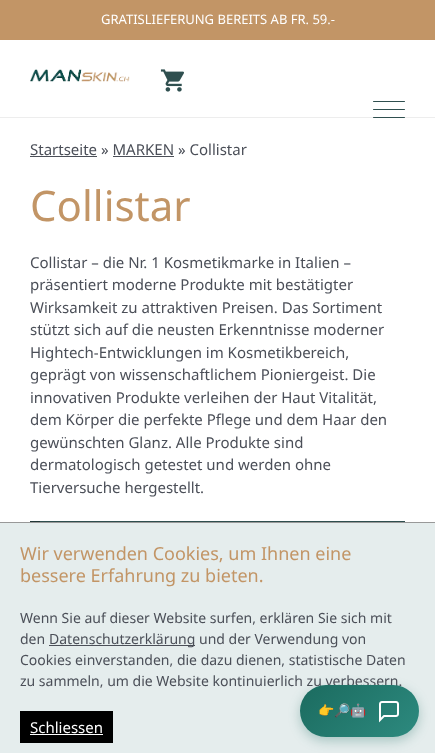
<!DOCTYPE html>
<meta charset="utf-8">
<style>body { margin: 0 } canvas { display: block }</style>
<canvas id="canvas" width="435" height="753"></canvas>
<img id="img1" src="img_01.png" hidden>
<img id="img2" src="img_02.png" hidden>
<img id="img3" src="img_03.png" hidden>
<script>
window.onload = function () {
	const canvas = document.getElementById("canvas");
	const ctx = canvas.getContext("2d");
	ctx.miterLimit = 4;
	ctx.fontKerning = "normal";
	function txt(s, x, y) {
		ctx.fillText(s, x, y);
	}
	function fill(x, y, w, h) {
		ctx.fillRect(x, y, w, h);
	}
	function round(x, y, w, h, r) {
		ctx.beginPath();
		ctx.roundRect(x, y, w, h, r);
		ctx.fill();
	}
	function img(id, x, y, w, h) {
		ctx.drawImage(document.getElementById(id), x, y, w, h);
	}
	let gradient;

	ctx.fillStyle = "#FFFFFF";
	fill(0, 0, 435, 753);
	ctx.fillStyle = "#C29566";
	fill(0, 0, 435, 40);
	ctx.fillStyle = "#EDEDED";
	fill(0, 117, 435, 1);
	img("img1", 30, 69, 100, 13);
	img("img2", 160, 69, 24, 23);
	ctx.fillStyle = "#2F4F4F";
	round(373, 101, 32, 1, 0.5);
	round(373, 109, 32, 1, 0.5);
	round(373, 117, 32, 1, 0.5);
	ctx.fillStyle = "#4B4F58";
	fill(30, 156, 67, 1);
	fill(113, 156, 61, 1);
	ctx.fillStyle = "#2F4F4F";
	fill(40, 521, 365, 1);
	ctx.fillStyle = "#213737";
	fill(30, 521, 10, 1);
	ctx.fillStyle = "#E5EDED";
	fill(0, 523, 435, 230);
	ctx.fillStyle = "#999999";
	fill(0, 522, 435, 1);
	ctx.fillStyle = "#4B4F58";
	fill(49, 645, 146, 1);
	ctx.fillStyle = "#000000";
	fill(20, 711, 93, 32);
	ctx.fillStyle = "#FFFFFF";
	fill(30, 734, 73, 1);
	ctx.fillStyle = "rgba(27, 107, 95, 0.3)";
	ctx.filter = "blur(6px)";
	ctx.beginPath();
	ctx.roundRect(300, 689, 119, 52, 26);
	ctx.fill();
	ctx.filter = "none";
	ctx.font = "13px Noto Sans";
	ctx.fillStyle = "#FFFFFF";
	txt("GRATISLIEFERUNG BEREITS AB FR. 59.-", 101, 24);
	ctx.font = "15px Noto Sans";
	ctx.fillStyle = "#4B4F58";
	txt("Startseite » MARKEN » Collistar", 30, 155);
	ctx.font = "42px Noto Sans";
	ctx.fillStyle = "#C29566";
	txt("Collistar", 30, 221);
	ctx.font = "15px Noto Sans";
	ctx.fillStyle = "#4B4F58";
	txt("Collistar – die Nr. 1 Kosmetikmarke in Italien –", 30, 268);
	txt("präsentiert moderne Produkte mit bestätigter", 30, 290);
	txt("Wirksamkeit zu attraktiven Preisen. Das Sortiment", 30, 313);
	txt("stützt sich auf die neusten Erkenntnisse moderner", 30, 335);
	txt("Hightech-Entwicklungen im Kosmetikbereich,", 30, 358);
	txt("geprägt von wissenschaftlichem Pioniergeist. Die", 30, 380);
	txt("innovativen Produkte verleihen der Haut Vitalität,", 30, 403);
	txt("dem Körper die perfekte Pflege und dem Haar den", 30, 425);
	txt("gewünschten Glanz. Alle Produkte sind", 30, 448);
	txt("dermatologisch getestet und werden ohne", 30, 470);
	txt("Tierversuche hergestellt.", 30, 493);
	ctx.font = "18px Noto Sans";
	ctx.fillStyle = "#C29566";
	txt("Wir verwenden Cookies, um Ihnen eine", 20, 560);
	txt("bessere Erfahrung zu bieten.", 20, 582);
	ctx.font = "14px Noto Sans";
	ctx.fillStyle = "#4B4F58";
	txt("Wenn Sie auf dieser Website surfen, erklären Sie sich mit", 20, 623);
	txt("den", 20, 644);
	txt("Datenschutzerklärung und der Verwendung von", 49, 644);
	txt("Cookies einverstanden, die dazu dienen, statistische Daten", 20, 665);
	txt("zu sammeln, um die Website kontinuierlich zu verbessern.", 20, 686);
	ctx.font = "15px Noto Sans";
	ctx.fillStyle = "#FFFFFF";
	txt("Schliessen", 30, 733);
	gradient = ctx.createLinearGradient(317, 668, 402, 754);
	gradient.addColorStop(0, "#1B6B5F");
	gradient.addColorStop(1, "#2D8A7F");
	ctx.fillStyle = gradient;
	round(300, 685, 119, 52, 26);
	ctx.font = "bold 13px Noto Color Emoji";
	ctx.fillStyle = "#FFFFFF";
	txt("👉🔎🤖", 318, 715);
	img("img3", 379, 701, 20, 22);
};
</script>
